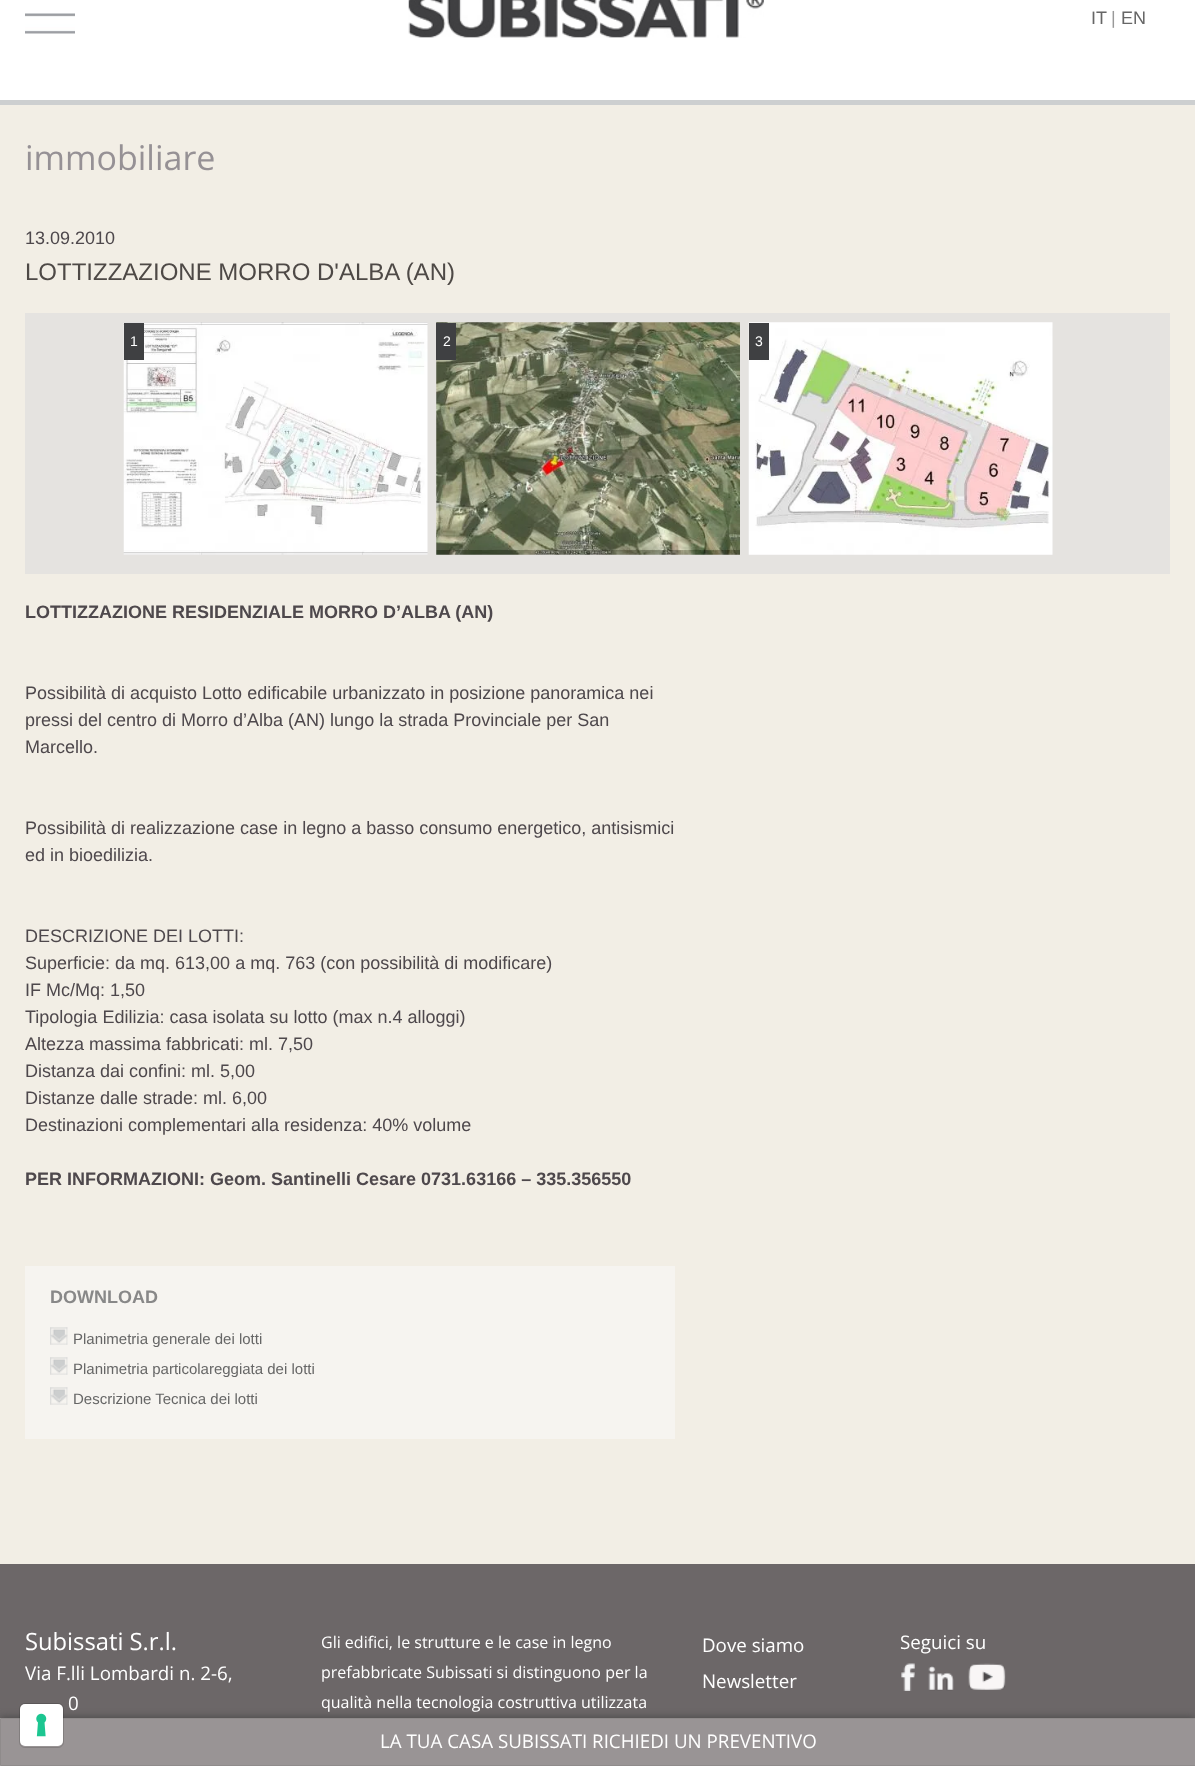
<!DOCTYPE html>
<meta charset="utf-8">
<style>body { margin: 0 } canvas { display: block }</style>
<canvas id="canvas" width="1195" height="1766"></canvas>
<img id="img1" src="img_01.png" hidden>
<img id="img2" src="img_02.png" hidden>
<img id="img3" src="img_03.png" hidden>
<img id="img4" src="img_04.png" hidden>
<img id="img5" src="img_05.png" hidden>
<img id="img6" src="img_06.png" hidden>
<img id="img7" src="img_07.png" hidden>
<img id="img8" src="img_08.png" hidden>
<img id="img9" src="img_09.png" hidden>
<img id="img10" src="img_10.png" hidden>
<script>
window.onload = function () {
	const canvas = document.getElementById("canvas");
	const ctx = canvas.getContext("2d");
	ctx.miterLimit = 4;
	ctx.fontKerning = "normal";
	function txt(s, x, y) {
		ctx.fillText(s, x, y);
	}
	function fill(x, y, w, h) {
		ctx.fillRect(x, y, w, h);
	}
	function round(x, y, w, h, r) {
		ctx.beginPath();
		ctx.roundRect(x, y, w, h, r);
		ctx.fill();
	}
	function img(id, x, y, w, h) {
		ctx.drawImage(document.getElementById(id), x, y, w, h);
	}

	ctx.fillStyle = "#F2EEE5";
	fill(0, 0, 1195, 1766);
	ctx.fillStyle = "#FFFFFF";
	fill(0, 0, 1195, 100);
	ctx.fillStyle = "#CDCFD0";
	fill(0, 100, 1195, 5);
	img("img1", 25, 13, 50, 21);
	img("img2", 408, 0, 356, 38);
	ctx.fillStyle = "#E5E3E0";
	fill(25, 313, 1145, 261);
	img("img3", 123, 322, 305, 233);
	ctx.fillStyle = "#3F4042";
	fill(124, 323, 20, 37);
	img("img4", 436, 322, 304, 233);
	fill(436, 323, 20, 37);
	img("img5", 748, 322, 305, 233);
	fill(749, 323, 20, 37);
	ctx.fillStyle = "#F6F4F0";
	fill(25, 1266, 650, 173);
	img("img6", 50, 1327, 18, 18);
	img("img6", 50, 1357, 18, 18);
	img("img6", 50, 1387, 18, 18);
	ctx.fillStyle = "#6C6768";
	fill(0, 1564, 1195, 154);
	img("img7", 901, 1663, 14, 28);
	img("img8", 928, 1666, 26, 25);
	img("img9", 968, 1663, 38, 27);
	ctx.fillStyle = "#444444";
	ctx.filter = "blur(4.5px)";
	ctx.beginPath();
	ctx.rect(0, 1718, 1195, 48);
	ctx.fill();
	ctx.filter = "none";
	ctx.fillStyle = "#999495";
	ctx.beginPath();
	ctx.rect(0.5, 1718.5, 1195, 47);
	ctx.fill();
	ctx.strokeStyle = "#8F8B8B";
	ctx.stroke();
	ctx.beginPath();
	ctx.roundRect(19.5, 1703.5, 44, 44, 5.5);
	ctx.strokeStyle = "rgba(0, 0, 0, 0.15)";
	ctx.stroke();
	ctx.fillStyle = "#FFFFFF";
	round(20, 1704, 43, 42, 5);
	img("img10", 36, 1713, 11, 24);
	ctx.font = "18px Liberation Sans";
	ctx.fillStyle = "#666666";
	txt("IT", 1091, 24);
	ctx.fillStyle = "#999999";
	txt("|", 1111, 24);
	ctx.fillStyle = "#666666";
	txt("EN", 1121, 24);
	ctx.font = "34px Open Sans";
	ctx.fillStyle = "#969195";
	txt("immobiliare", 25, 170);
	ctx.font = "18px Liberation Sans";
	ctx.fillStyle = "#4E484C";
	txt("13.09.2010", 25, 244);
	ctx.font = "24px Liberation Sans";
	ctx.fillStyle = "#4E4946";
	txt("LOTTIZZAZIONE MORRO D'ALBA (AN)", 25, 280);
	ctx.font = "14px Liberation Sans";
	ctx.fillStyle = "#FFFFFF";
	txt("1", 130, 346);
	txt("2", 443, 346);
	txt("3", 755, 346);
	ctx.font = "bold 18px Liberation Sans";
	ctx.fillStyle = "#4E484C";
	txt("LOTTIZZAZIONE RESIDENZIALE MORRO D’ALBA (AN)", 25, 618);
	ctx.font = "18px Liberation Sans";
	txt("Possibilità di acquisto Lotto edificabile urbanizzato in posizione panoramica nei", 25, 699);
	txt("pressi del centro di Morro d’Alba (AN) lungo la strada Provinciale per San", 25, 726);
	txt("Marcello.", 25, 753);
	txt("Possibilità di realizzazione case in legno a basso consumo energetico, antisismici", 25, 834);
	txt("ed in bioedilizia.", 25, 861);
	txt("DESCRIZIONE DEI LOTTI:", 25, 942);
	txt("Superficie: da mq. 613,00 a mq. 763 (con possibilità di modificare)", 25, 969);
	txt("IF Mc/Mq: 1,50", 25, 996);
	txt("Tipologia Edilizia: casa isolata su lotto (max n.4 alloggi)", 25, 1023);
	txt("Altezza massima fabbricati: ml. 7,50", 25, 1050);
	txt("Distanza dai confini: ml. 5,00", 25, 1077);
	txt("Distanze dalle strade: ml. 6,00", 25, 1104);
	txt("Destinazioni complementari alla residenza: 40% volume", 25, 1131);
	ctx.font = "bold 18px Liberation Sans";
	txt("PER INFORMAZIONI: Geom. Santinelli Cesare 0731.63166 – 335.356550", 25, 1185);
	ctx.fillStyle = "#888888";
	txt("DOWNLOAD", 50, 1303);
	ctx.font = "15px Liberation Sans";
	ctx.fillStyle = "#666666";
	txt("Planimetria generale dei lotti", 73, 1344);
	txt("Planimetria particolareggiata dei lotti", 73, 1374);
	txt("Descrizione Tecnica dei lotti", 73, 1404);
	ctx.font = "23.75px Open Sans";
	ctx.fillStyle = "#FFFFFF";
	txt("Subissati S.r.l.", 25, 1650);
	ctx.font = "18.75px Open Sans";
	txt("Via F.lli Lombardi n. 2-6,", 25, 1680);
	txt("0", 68, 1710);
	ctx.font = "16px Open Sans";
	txt("Gli edifici, le strutture e le case in legno", 321, 1648);
	txt("prefabbricate Subissati si distinguono per la", 321, 1678);
	txt("qualità nella tecnologia costruttiva utilizzata", 321, 1708);
	ctx.font = "18.75px Open Sans";
	txt("Dove siamo", 702, 1652);
	txt("Newsletter", 702, 1688);
	txt("Seguici su", 900, 1649);
	txt("LA TUA CASA SUBISSATI RICHIEDI UN PREVENTIVO", 380, 1748);
};
</script>
